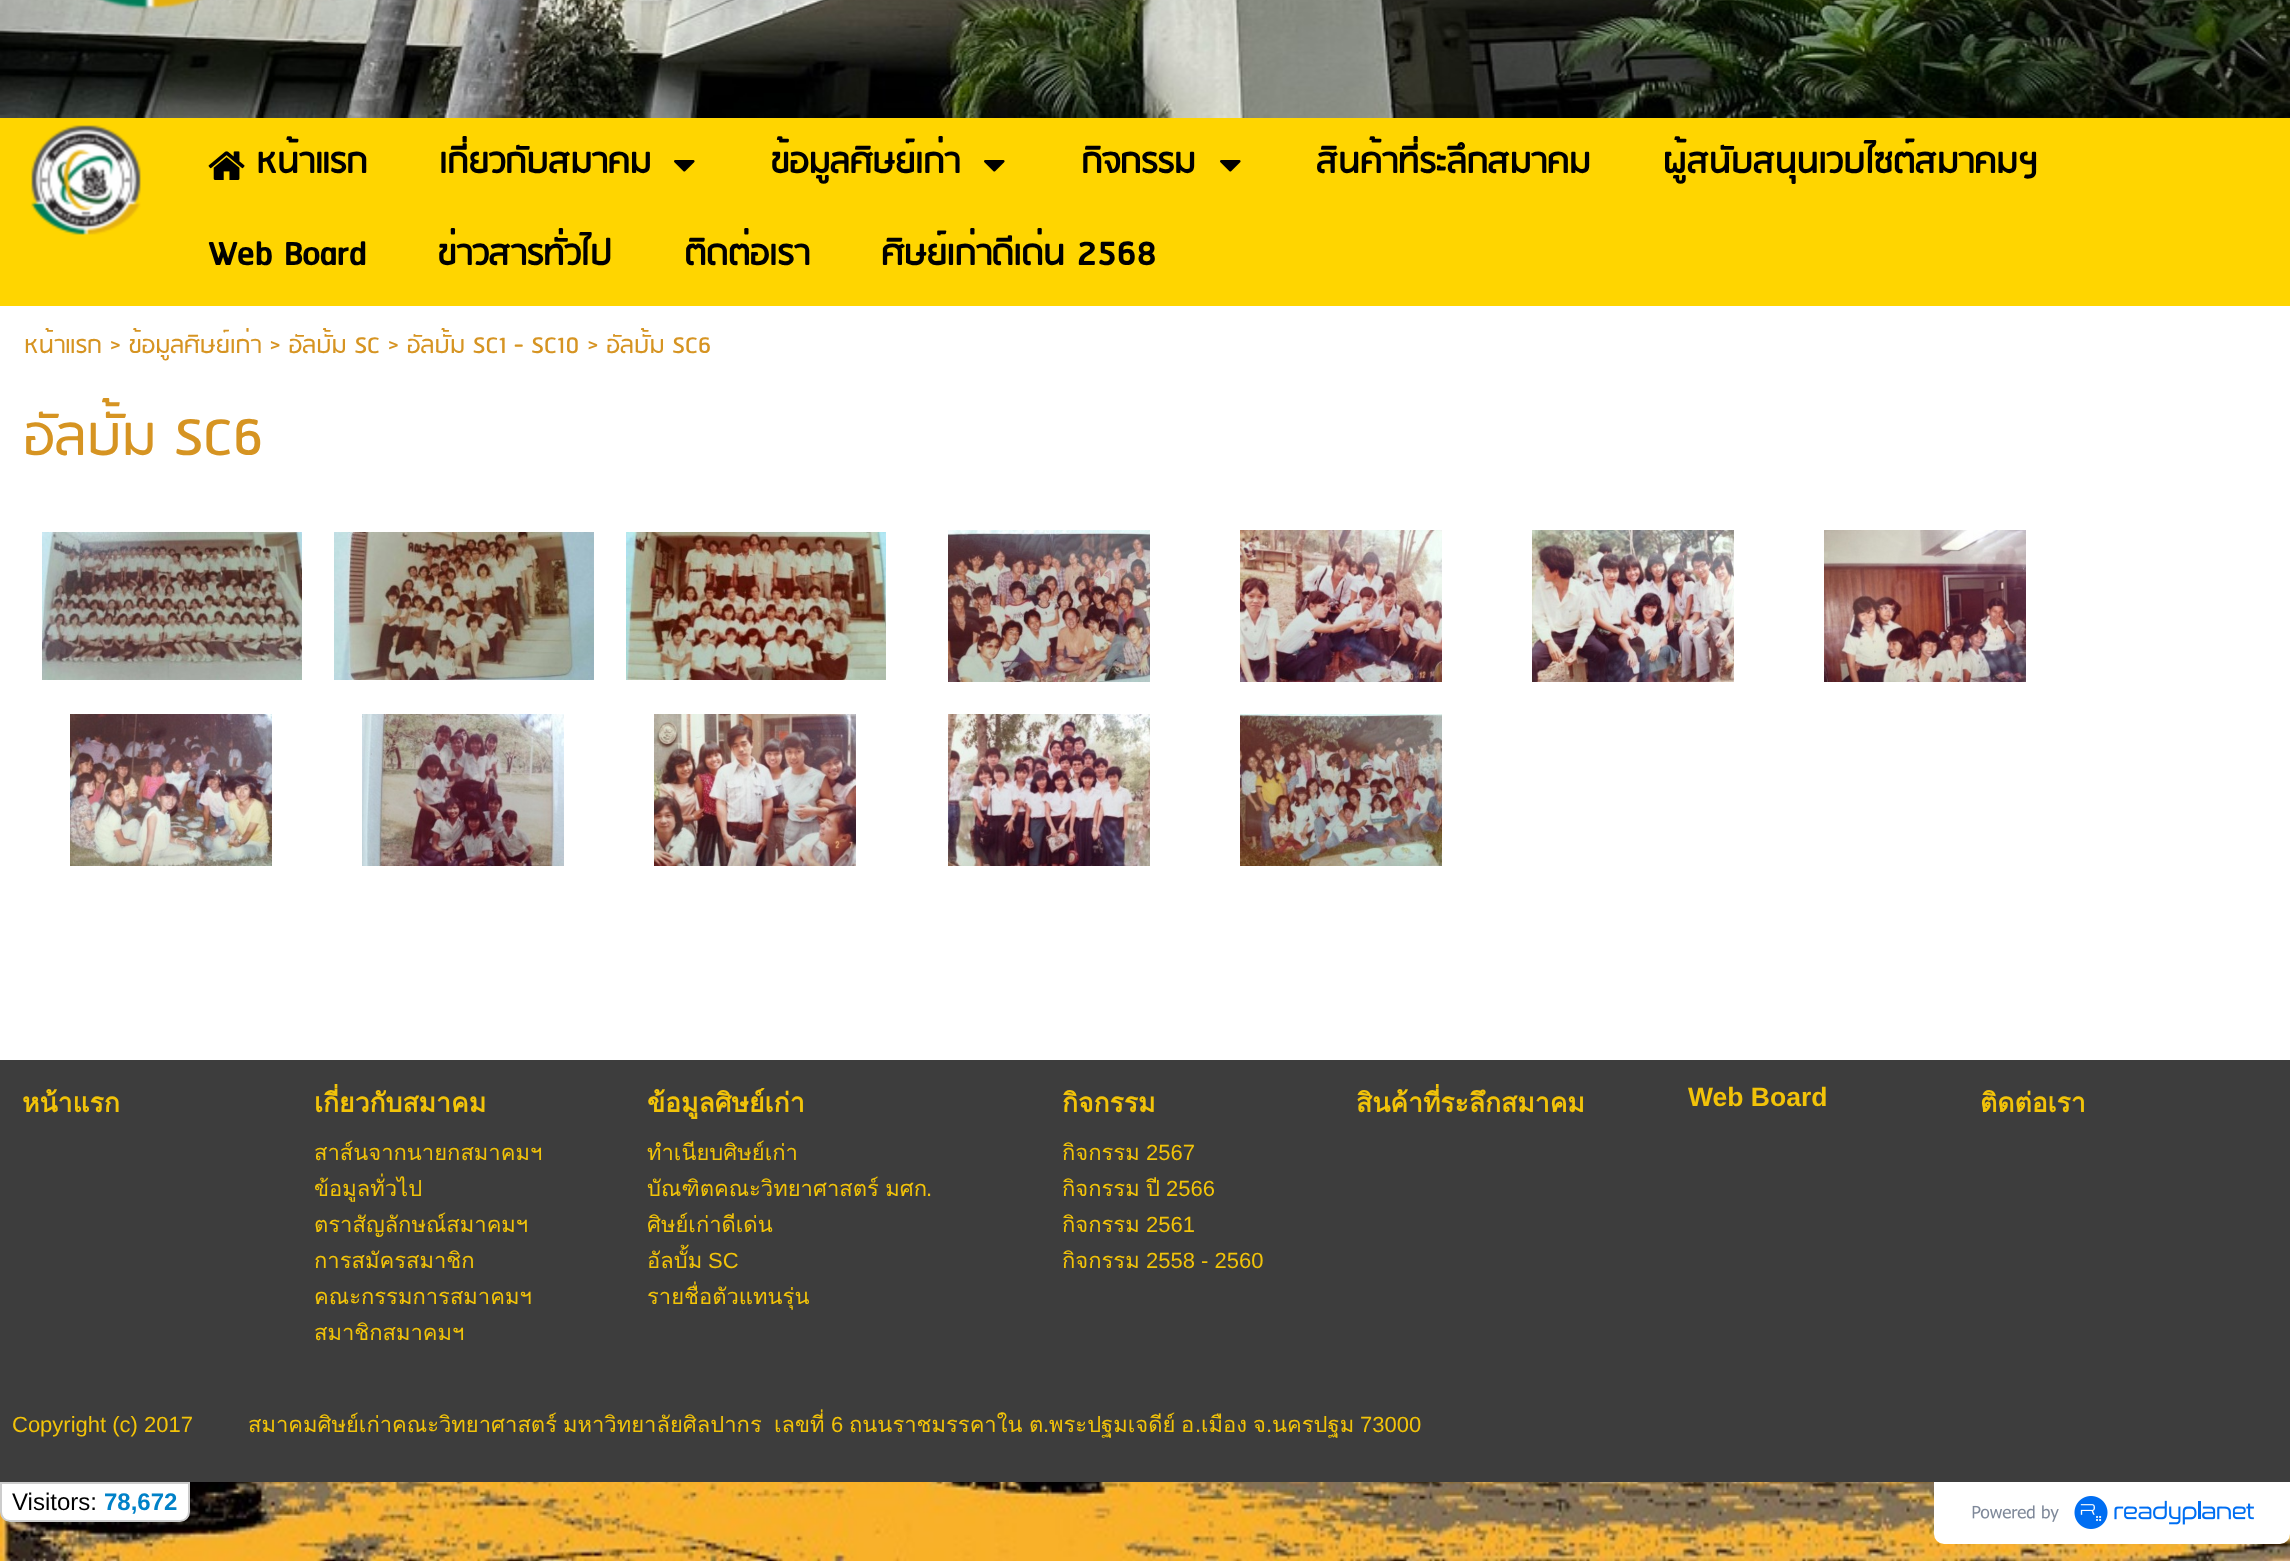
<!DOCTYPE html>
<meta charset="utf-8">
<style>body { margin: 0 } canvas { display: block }</style>
<canvas id="canvas" width="2290" height="1561"></canvas>
<img id="img1" src="img_01.png" hidden>
<img id="img2" src="img_02.png" hidden>
<img id="img3" src="img_03.png" hidden>
<img id="img4" src="img_04.png" hidden>
<img id="img5" src="img_05.png" hidden>
<img id="img6" src="img_06.png" hidden>
<img id="img7" src="img_07.png" hidden>
<img id="img8" src="img_08.png" hidden>
<img id="img9" src="img_09.png" hidden>
<img id="img10" src="img_10.png" hidden>
<img id="img11" src="img_11.png" hidden>
<img id="img12" src="img_12.png" hidden>
<img id="img13" src="img_13.png" hidden>
<img id="img14" src="img_14.png" hidden>
<img id="img15" src="img_15.png" hidden>
<img id="img16" src="img_16.png" hidden>
<img id="img17" src="img_17.png" hidden>
<img id="img18" src="img_18.png" hidden>
<img id="img19" src="img_19.png" hidden>
<script>
window.onload = function () {
	const canvas = document.getElementById("canvas");
	const ctx = canvas.getContext("2d");
	ctx.miterLimit = 4;
	ctx.fontKerning = "normal";
	function txt(s, x, y) {
		ctx.fillText(s, x, y);
	}
	function fill(x, y, w, h) {
		ctx.fillRect(x, y, w, h);
	}
	function img(id, x, y, w, h) {
		ctx.drawImage(document.getElementById(id), x, y, w, h);
	}

	ctx.fillStyle = "#FFFFFF";
	fill(0, 0, 2290, 1561);
	img("img1", 0, 1482, 2290, 79);
	img("img2", 0, 0, 2290, 118);
	img("img3", 97, 0, 106, 9);
	ctx.fillStyle = "#FFD500";
	fill(0, 118, 2290, 188);
	img("img4", 31, 125, 110, 110);
	img("img5", 208, 151, 37, 29);
	img("img6", 674, 160, 21, 12);
	img("img6", 984, 160, 21, 12);
	img("img6", 1220, 160, 21, 12);
	img("img7", 42, 532, 260, 148);
	img("img8", 334, 532, 260, 148);
	img("img9", 626, 532, 260, 148);
	img("img10", 948, 530, 202, 152);
	img("img11", 1240, 530, 202, 152);
	img("img12", 1532, 530, 202, 152);
	img("img13", 1824, 530, 202, 152);
	img("img14", 70, 714, 202, 152);
	img("img15", 362, 714, 202, 152);
	img("img16", 654, 714, 202, 152);
	img("img17", 948, 714, 202, 152);
	img("img18", 1240, 714, 202, 152);
	ctx.fillStyle = "#3D3D3D";
	fill(0, 1060, 2290, 422);
	ctx.fillStyle = "#FFFFFF";
	ctx.beginPath();
	ctx.roundRect(1, 1483, 188, 38, [0, 0, 9, 9]);
	ctx.fill();
	ctx.strokeStyle = "#CCCCCC";
	ctx.lineWidth = 2;
	ctx.stroke();
	ctx.beginPath();
	ctx.roundRect(1934, 1482, 356, 62, [0, 0, 10, 10]);
	ctx.fill();
	img("img19", 1972, 1496, 282, 33);
	ctx.font = "bold 40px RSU";
	ctx.fillStyle = "#000000";
	txt("หน้าแรก", 256, 173);
	txt("เกี่ยวกับสมาคม", 439, 173);
	txt("ข้อมูลศิษย์เก่า", 771, 173);
	txt("กิจกรรม", 1081, 173);
	txt("สินค้าที่ระลึกสมาคม", 1316, 173);
	txt("ผู้สนับสนุนเวบไซต์สมาคมฯ", 1662, 173);
	txt("Web Board", 208, 265);
	txt("ข่าวสารทั่วไป", 438, 265);
	txt("ติดต่อเรา", 684, 265);
	txt("ศิษย์เก่าดีเด่น 2568", 881, 265);
	ctx.font = "28px RSU";
	ctx.fillStyle = "#D69422";
	txt("หน้าแรก > ข้อมูลศิษย์เก่า > อัลบั้ม SC > อัลบั้ม SC1 - SC10 > อัลบั้ม SC6", 24, 353);
	ctx.font = "64px RSU";
	txt("อัลบั้ม SC6", 24, 455);
	ctx.font = "bold 26.5px Loma";
	ctx.fillStyle = "#F2C309";
	txt("หน้าแรก", 22, 1112);
	txt("เกี่ยวกับสมาคม", 314, 1112);
	ctx.font = "22px Loma";
	txt("สาส์นจากนายกสมาคมฯ", 314, 1160);
	txt("ข้อมูลทั่วไป", 314, 1196);
	txt("ตราสัญลักษณ์สมาคมฯ", 314, 1232);
	txt("การสมัครสมาชิก", 314, 1268);
	txt("คณะกรรมการสมาคมฯ", 314, 1304);
	txt("สมาชิกสมาคมฯ", 314, 1340);
	ctx.font = "bold 26.5px Loma";
	txt("ข้อมูลศิษย์เก่า", 647, 1112);
	ctx.font = "22px Loma";
	txt("ทำเนียบศิษย์เก่า", 647, 1160);
	ctx.wordSpacing = "-1px";
	txt("บัณฑิตคณะวิทยาศาสตร์ มศก", 647, 1196);
	ctx.wordSpacing = "0px";
	ctx.font = "22px Liberation Sans";
	txt(".", 926, 1196);
	ctx.font = "22px Loma";
	txt("ศิษย์เก่าดีเด่น", 647, 1232);
	txt("อัลบั้ม", 647, 1268);
	ctx.font = "22px Liberation Sans";
	txt("SC", 708, 1268);
	ctx.font = "22px Loma";
	txt("รายชื่อตัวแทนรุ่น", 647, 1304);
	ctx.font = "bold 26.5px Loma";
	txt("กิจกรรม", 1062, 1112);
	ctx.font = "22px Loma";
	txt("กิจกรรม", 1062, 1160);
	ctx.font = "22px Liberation Sans";
	txt("2567", 1146, 1160);
	ctx.wordSpacing = "-1px";
	ctx.font = "22px Loma";
	txt("กิจกรรม ปี", 1062, 1196);
	ctx.wordSpacing = "0px";
	ctx.font = "22px Liberation Sans";
	txt("2566", 1166, 1196);
	ctx.font = "22px Loma";
	txt("กิจกรรม", 1062, 1232);
	ctx.font = "22px Liberation Sans";
	txt("2561", 1146, 1232);
	ctx.font = "22px Loma";
	txt("กิจกรรม", 1062, 1268);
	ctx.font = "22px Liberation Sans";
	txt("2558 - 2560", 1146, 1268);
	ctx.font = "bold 26.5px Loma";
	txt("สินค้าที่ระลึกสมาคม", 1356, 1112);
	ctx.font = "bold 26.5px Liberation Sans";
	txt("Web Board", 1688, 1106);
	ctx.font = "bold 26.5px Loma";
	txt("ติดต่อเรา", 1980, 1112);
	ctx.font = "22px Liberation Sans";
	txt("Copyright (c) 2017", 12, 1432);
	ctx.font = "22px Loma";
	txt("สมาคมศิษย์เก่าคณะวิทยาศาสตร์", 248, 1432);
	txt("มหาวิทยาลัยศิลปากร", 563, 1432);
	txt("เลขที่", 774, 1432);
	ctx.font = "22px Liberation Sans";
	txt("6", 831, 1432);
	ctx.font = "22px Loma";
	txt("ถนนราชมรรคาใน", 849, 1432);
	txt("ต", 1029, 1432);
	ctx.font = "22px Liberation Sans";
	txt(".", 1043, 1432);
	ctx.font = "22px Loma";
	txt("พระปฐมเจดีย์", 1049, 1432);
	txt("อ", 1181, 1432);
	txt("จ", 1253, 1432);
	txt("นครปฐม", 1272, 1432);
	ctx.font = "22px Liberation Sans";
	txt("73000", 1360, 1432);
	txt(".", 1195, 1432);
	ctx.font = "22px Loma";
	txt("เมือง", 1201, 1432);
	ctx.font = "22px Liberation Sans";
	txt(".", 1266, 1432);
	ctx.font = "24px Liberation Sans";
	ctx.fillStyle = "#000000";
	txt("Visitors:", 12, 1510);
	ctx.font = "bold 24px Liberation Sans";
	ctx.fillStyle = "#0081C8";
	txt("78,672", 104, 1510);
};
</script>
